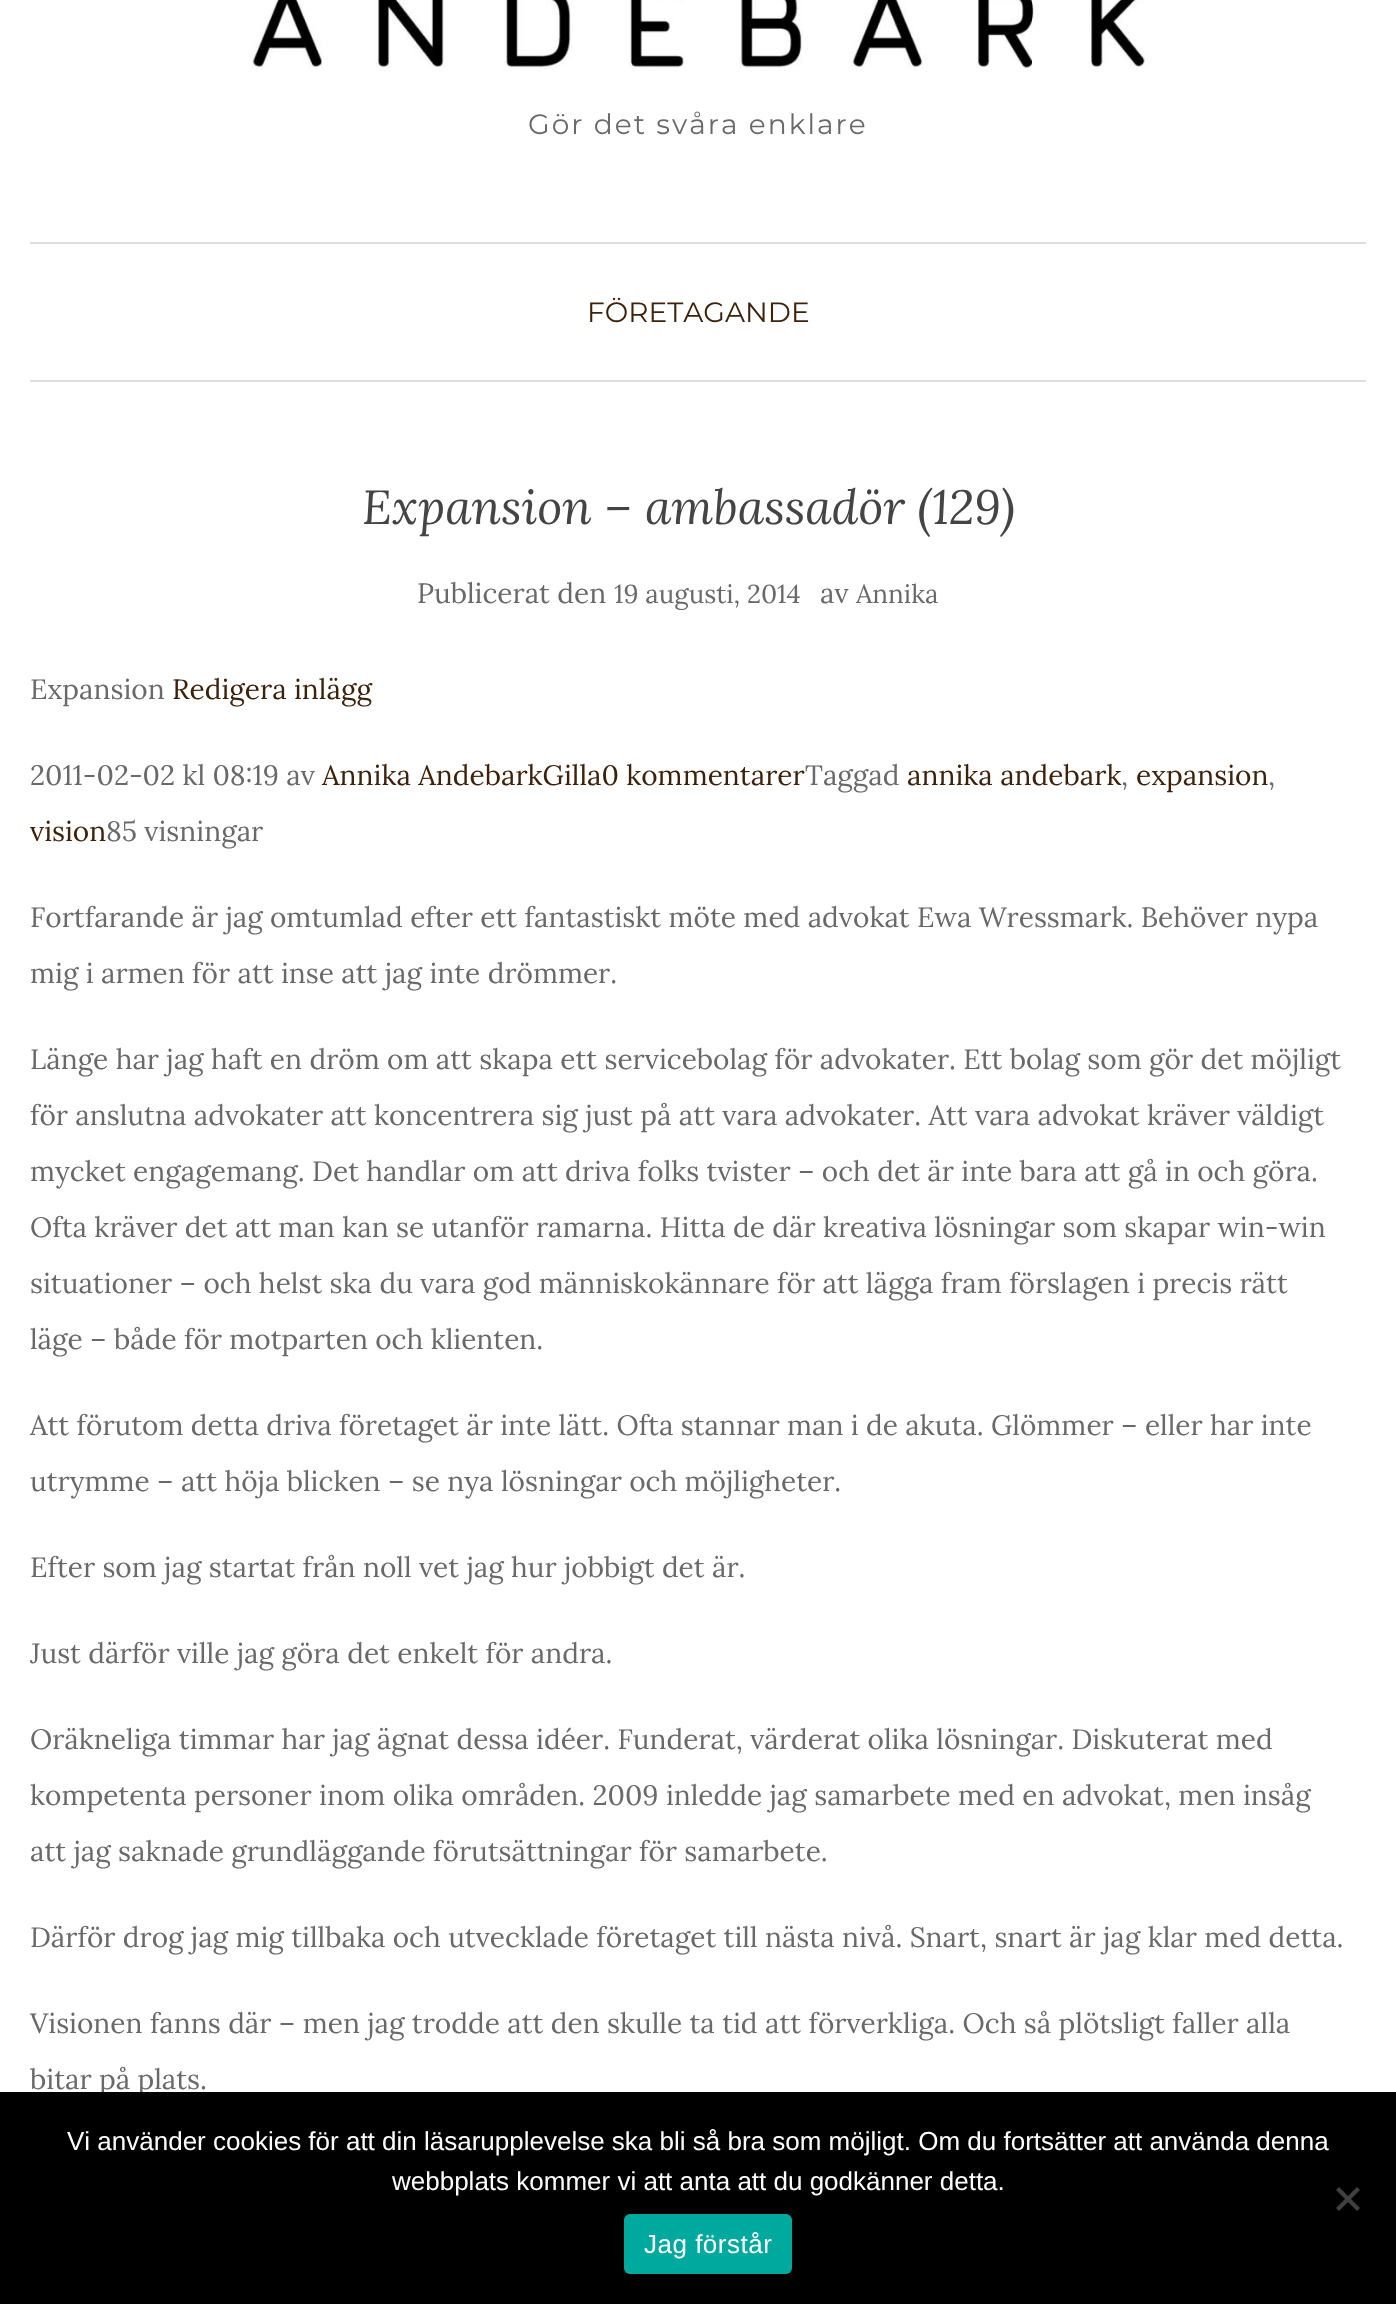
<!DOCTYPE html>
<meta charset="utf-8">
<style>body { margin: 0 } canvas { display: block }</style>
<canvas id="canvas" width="1396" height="2304"></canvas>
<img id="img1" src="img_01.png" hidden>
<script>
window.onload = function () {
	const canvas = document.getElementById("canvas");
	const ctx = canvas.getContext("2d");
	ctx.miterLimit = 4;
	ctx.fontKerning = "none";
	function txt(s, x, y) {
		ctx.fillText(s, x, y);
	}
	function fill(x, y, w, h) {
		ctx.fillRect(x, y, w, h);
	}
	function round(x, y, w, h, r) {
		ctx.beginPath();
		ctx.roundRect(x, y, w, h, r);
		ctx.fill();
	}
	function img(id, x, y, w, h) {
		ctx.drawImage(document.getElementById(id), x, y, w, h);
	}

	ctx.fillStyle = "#FFFFFF";
	fill(0, 0, 1396, 2304);
	img("img1", 252, 0, 896, 71);
	ctx.fillStyle = "#DDDDDD";
	fill(30, 242, 1336, 2);
	ctx.fillStyle = "#DEDEDE";
	fill(30, 380, 1336, 2);
	ctx.letterSpacing = "2px";
	ctx.font = "28px Montserrat";
	ctx.fillStyle = "#696969";
	txt("Gör det svåra enklare", 528, 134);
	ctx.letterSpacing = "0px";
	ctx.fillStyle = "#3D220B";
	txt("FÖRETAGANDE", 587, 322);
	ctx.font = "italic 48px Lora";
	ctx.fillStyle = "#444444";
	txt("Expansion – ambassadör (129)", 362, 524);
	ctx.font = "28px Lora";
	ctx.fillStyle = "#696969";
	txt("Publicerat den", 417, 603);
	ctx.font = "26px Lora";
	txt("19 augusti, 2014", 614, 603);
	ctx.font = "28px Lora";
	txt("av", 820, 603);
	ctx.font = "26px Lora";
	txt("Annika", 856, 603);
	ctx.font = "28px Lora";
	txt("Expansion", 30, 699);
	ctx.fillStyle = "#3D220B";
	txt("Redigera inlägg", 172, 699);
	ctx.fillStyle = "#696969";
	txt("2011-02-02 kl 08:19 av", 30, 785);
	ctx.fillStyle = "#3D220B";
	txt("Annika AndebarkGilla0 kommentarer", 322, 785);
	ctx.fillStyle = "#696969";
	txt("Taggad", 805, 785);
	ctx.fillStyle = "#3D220B";
	txt("annika andebark", 907, 785);
	ctx.fillStyle = "#696969";
	txt(",", 1121, 785);
	ctx.fillStyle = "#3D220B";
	txt("expansion", 1136, 785);
	ctx.fillStyle = "#696969";
	txt(",", 1268, 785);
	ctx.fillStyle = "#3D220B";
	txt("vision", 30, 841);
	ctx.fillStyle = "#696969";
	txt("85 visningar", 106, 841);
	txt("Fortfarande är jag omtumlad efter ett fantastiskt möte med advokat Ewa Wressmark. Behöver nypa", 30, 927);
	txt("mig i armen för att inse att jag inte drömmer.", 30, 983);
	txt("Länge har jag haft en dröm om att skapa ett servicebolag för advokater. Ett bolag som gör det möjligt", 30, 1069);
	txt("för anslutna advokater att koncentrera sig just på att vara advokater. Att vara advokat kräver", 30, 1125);
	txt("väldigt", 1237, 1125);
	txt("mycket engagemang. Det handlar om att driva folks tvister – och det är inte bara att gå in och göra.", 30, 1181);
	txt("Ofta kräver det att man kan se utanför ramarna. Hitta de där kreativa lösningar som skapar win-win", 30, 1237);
	txt("situationer – och helst ska du vara god människokännare för att lägga fram förslagen i precis rätt", 30, 1293);
	txt("läge – både för motparten och klienten.", 30, 1349);
	txt("Att förutom detta driva företaget är inte lätt. Ofta stannar man i de akuta. Glömmer – eller har inte", 30, 1435);
	txt("utrymme – att höja blicken – se nya lösningar och möjligheter.", 30, 1491);
	txt("Efter som jag startat från noll vet jag hur jobbigt det är.", 30, 1577);
	txt("Just därför ville jag göra det enkelt för andra.", 30, 1663);
	txt("Oräkneliga timmar har jag ägnat dessa idéer. Funderat, värderat olika lösningar. Diskuterat med", 30, 1749);
	txt("kompetenta personer inom olika områden. 2009 inledde jag samarbete med en advokat, men insåg", 30, 1805);
	txt("att jag saknade grundläggande förutsättningar för samarbete.", 30, 1861);
	txt("Därför drog jag mig tillbaka och utvecklade företaget till nästa nivå. Snart, snart är jag klar med detta.", 30, 1947);
	txt("Visionen fanns där – men jag trodde att den skulle ta tid att förverkliga. Och så plötsligt faller alla", 30, 2033);
	txt("bitar på plats.", 30, 2089);
	ctx.fillStyle = "#000000";
	fill(0, 2092, 1396, 212);
	ctx.font = "26px Liberation Sans";
	ctx.fillStyle = "#FFFFFF";
	txt("Vi använder cookies för att din läsarupplevelse ska bli så bra som möjligt. Om du fortsätter att använda denna", 67, 2150);
	txt("webbplats kommer vi att anta att du godkänner detta.", 392, 2190);
	ctx.fillStyle = "#404040";
	ctx.beginPath();
	ctx.moveTo(1357, 2187);
	ctx.lineTo(1360, 2190);
	ctx.lineTo(1339, 2211);
	ctx.lineTo(1336, 2208);
	ctx.closePath();
	ctx.fill();
	ctx.beginPath();
	ctx.moveTo(1336, 2190);
	ctx.lineTo(1339, 2187);
	ctx.lineTo(1360, 2208);
	ctx.lineTo(1357, 2211);
	ctx.closePath();
	ctx.fill();
	ctx.fillStyle = "#00A99D";
	round(624, 2214, 168, 60, 6);
	ctx.letterSpacing = "0.5px";
	ctx.fillStyle = "#FFFFFF";
	txt("Jag förstår", 644, 2253);
};
</script>
